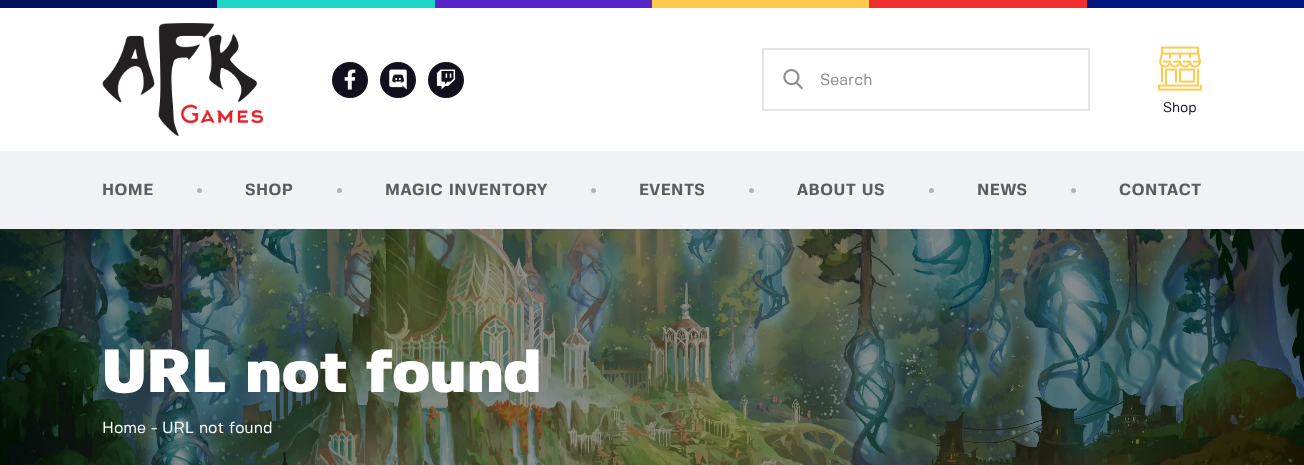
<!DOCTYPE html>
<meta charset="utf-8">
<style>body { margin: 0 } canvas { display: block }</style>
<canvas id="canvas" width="1304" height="465"></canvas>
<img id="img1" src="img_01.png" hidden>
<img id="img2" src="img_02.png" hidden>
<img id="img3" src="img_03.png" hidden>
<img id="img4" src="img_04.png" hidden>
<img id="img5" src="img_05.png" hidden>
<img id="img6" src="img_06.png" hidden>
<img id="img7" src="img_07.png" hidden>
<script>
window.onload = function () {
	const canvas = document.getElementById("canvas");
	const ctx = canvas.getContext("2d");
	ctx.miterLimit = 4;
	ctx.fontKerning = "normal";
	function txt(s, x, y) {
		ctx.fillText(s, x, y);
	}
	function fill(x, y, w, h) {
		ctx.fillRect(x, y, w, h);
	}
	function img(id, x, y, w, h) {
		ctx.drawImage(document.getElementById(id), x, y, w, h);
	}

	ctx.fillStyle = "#FFFFFF";
	fill(0, 0, 1304, 465);
	ctx.fillStyle = "#00105A";
	fill(0, 0, 217, 8);
	ctx.fillStyle = "#1DD5CA";
	fill(217, 0, 218, 8);
	ctx.fillStyle = "#5725CB";
	fill(435, 0, 217, 8);
	ctx.fillStyle = "#FFC94A";
	fill(652, 0, 217, 8);
	ctx.fillStyle = "#F22F2F";
	fill(869, 0, 218, 8);
	ctx.fillStyle = "#001780";
	fill(1087, 0, 217, 8);
	img("img1", 102, 23, 161, 113);
	ctx.fillStyle = "#12101C";
	ctx.beginPath();
	ctx.arc(350, 80, 18, 0, Math.PI * 2);
	ctx.fill();
	img("img2", 344, 69, 12, 21);
	ctx.beginPath();
	ctx.arc(398, 80, 18, 0, Math.PI * 2);
	ctx.fill();
	img("img3", 389, 69, 18, 21);
	ctx.beginPath();
	ctx.arc(446, 80, 18, 0, Math.PI * 2);
	ctx.fill();
	img("img4", 436, 69, 20, 21);
	ctx.strokeStyle = "#E3E5EA";
	ctx.lineWidth = 2;
	ctx.strokeRect(763, 49, 326, 61);
	img("img5", 783, 69, 20, 20);
	img("img6", 1158, 46, 44, 45);
	ctx.fillStyle = "#F0F2F5";
	fill(0, 151, 1304, 78);
	ctx.fillStyle = "#B0B3B7";
	ctx.beginPath();
	ctx.arc(199.5, 190.5, 2.5, 0, Math.PI * 2);
	ctx.fill();
	ctx.beginPath();
	ctx.arc(339.5, 190.5, 2.5, 0, Math.PI * 2);
	ctx.fill();
	ctx.beginPath();
	ctx.arc(593.5, 190.5, 2.5, 0, Math.PI * 2);
	ctx.fill();
	ctx.beginPath();
	ctx.arc(751.5, 190.5, 2.5, 0, Math.PI * 2);
	ctx.fill();
	ctx.beginPath();
	ctx.arc(931.5, 190.5, 2.5, 0, Math.PI * 2);
	ctx.fill();
	ctx.beginPath();
	ctx.arc(1073.5, 190.5, 2.5, 0, Math.PI * 2);
	ctx.fill();
	img("img7", 0, 229, 1304, 236);
	ctx.font = "16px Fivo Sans";
	ctx.fillStyle = "#8B8D91";
	txt("Search", 820, 85);
	ctx.font = "14px Fivo Sans";
	ctx.fillStyle = "#12101C";
	txt("Shop", 1163, 112);
	ctx.letterSpacing = "0.5px";
	ctx.font = "bold 16px Fivo Sans";
	ctx.fillStyle = "#5A5E61";
	txt("HOME", 102, 195);
	txt("SHOP", 245, 195);
	txt("MAGIC INVENTORY", 385, 195);
	txt("EVENTS", 639, 195);
	txt("ABOUT US", 797, 195);
	txt("NEWS", 977, 195);
	txt("CONTACT", 1119, 195);
	ctx.letterSpacing = "0px";
	ctx.font = "900 60.75px Fivo Sans";
	ctx.fillStyle = "#FFFFFF";
	txt("URL not found", 102, 392);
	ctx.font = "16px Fivo Sans";
	txt("Home -", 102, 433);
	txt("URL not found", 162, 433);
};
</script>
